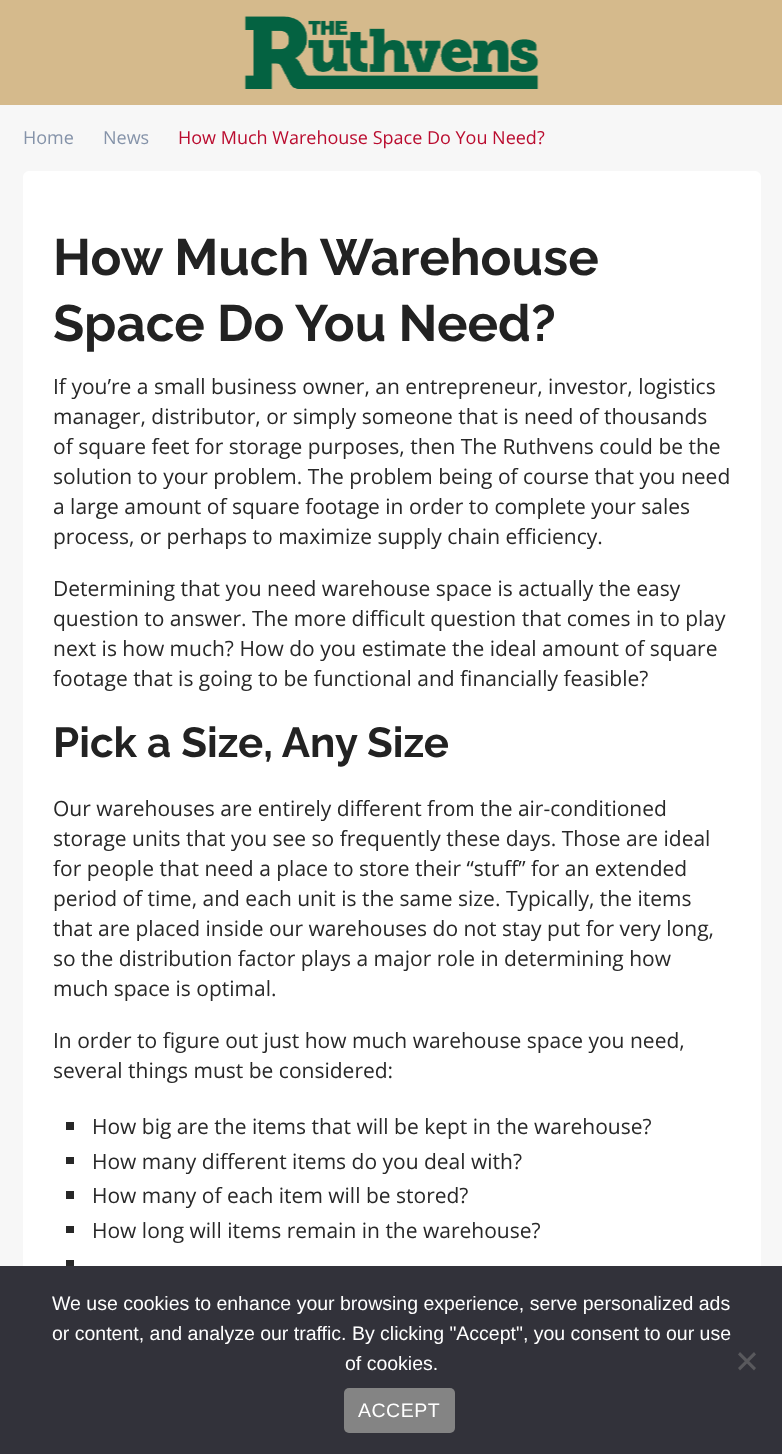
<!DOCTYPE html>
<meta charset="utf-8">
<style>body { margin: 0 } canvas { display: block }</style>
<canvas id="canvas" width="782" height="1454"></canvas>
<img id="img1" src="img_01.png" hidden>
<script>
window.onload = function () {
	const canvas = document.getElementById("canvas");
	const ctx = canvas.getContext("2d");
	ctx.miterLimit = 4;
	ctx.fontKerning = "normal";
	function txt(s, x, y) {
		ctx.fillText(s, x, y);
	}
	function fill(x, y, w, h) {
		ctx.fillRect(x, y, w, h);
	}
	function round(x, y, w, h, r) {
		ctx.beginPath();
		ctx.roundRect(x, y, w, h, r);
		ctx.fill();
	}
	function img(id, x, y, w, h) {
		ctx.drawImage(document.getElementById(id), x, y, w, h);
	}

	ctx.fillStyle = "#F7F7F7";
	fill(0, 0, 782, 1454);
	ctx.fillStyle = "#D5BA8C";
	fill(0, 0, 782, 105);
	img("img1", 244, 16, 295, 73);
	ctx.fillStyle = "#FFFFFF";
	round(23, 171, 738, 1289, 6);
	ctx.fillStyle = "#282828";
	fill(66, 1122, 8, 8);
	fill(66, 1157, 8, 7);
	fill(66, 1191, 8, 8);
	fill(66, 1226, 8, 7);
	fill(66, 1260, 8, 6);
	ctx.fillStyle = "#32323A";
	fill(0, 1266, 782, 188);
	ctx.fillStyle = "#59595D";
	ctx.beginPath();
	ctx.moveTo(754, 1352);
	ctx.lineTo(756, 1354.5);
	ctx.lineTo(740, 1370.5);
	ctx.lineTo(738, 1368);
	ctx.closePath();
	ctx.fill();
	ctx.beginPath();
	ctx.moveTo(738, 1354.5);
	ctx.lineTo(740, 1352);
	ctx.lineTo(756, 1368);
	ctx.lineTo(754, 1370.5);
	ctx.closePath();
	ctx.fill();
	ctx.fillStyle = "#848484";
	round(344, 1388, 111, 45, 5);
	ctx.font = "18px Open Sans";
	ctx.fillStyle = "#8593A9";
	txt("Home", 23, 144);
	txt("News", 103, 144);
	ctx.fillStyle = "#BA0C2F";
	txt("How Much Warehouse Space Do You Need?", 178, 144);
	ctx.font = "bold 51px Raleway";
	ctx.fillStyle = "#222222";
	txt("How Much Warehouse", 53, 275);
	txt("Space Do You Need?", 53, 341);
	ctx.font = "21px Open Sans";
	ctx.fillStyle = "#282828";
	txt("If you’re a small business owner, an entrepreneur, investor, logistics", 53, 394);
	txt("manager, distributor, or simply someone that is need of thousands", 53, 424);
	txt("of square feet for storage purposes, then The Ruthvens could be the", 53, 454);
	txt("solution to your problem. The problem being of course that you need", 53, 484);
	txt("a large amount of square footage in order to complete your sales", 53, 514);
	txt("process, or perhaps to maximize supply chain efficiency.", 53, 544);
	txt("Determining that you need warehouse space is actually the easy", 53, 596);
	txt("question to answer. The more difficult question that comes in to play", 53, 626);
	txt("next is how much? How do you estimate the ideal amount of square", 53, 656);
	txt("footage that is going to be functional and financially feasible?", 53, 686);
	ctx.font = "bold 42px Raleway";
	ctx.fillStyle = "#222222";
	txt("Pick a Size, Any Size", 53, 757);
	ctx.font = "21px Open Sans";
	ctx.fillStyle = "#282828";
	txt("Our warehouses are entirely different from the air-conditioned", 53, 816);
	txt("storage units that you see so frequently these days. Those are ideal", 53, 846);
	txt("for people that need a place to store their “stuff” for an extended", 53, 876);
	txt("period of time, and each unit is the same size. Typically, the items", 53, 906);
	txt("that are placed inside our warehouses do not stay put for very long,", 53, 936);
	txt("so the distribution factor plays a major role in determining how", 53, 966);
	txt("much space is optimal.", 53, 996);
	txt("In order to figure out just how much warehouse space you need,", 53, 1048);
	txt("several things must be considered:", 53, 1078);
	txt("How big are the items that will be kept in the warehouse?", 92, 1134);
	txt("How many different items do you deal with?", 92, 1169);
	txt("How many of each item will be stored?", 92, 1203);
	txt("How long will items remain in the warehouse?", 92, 1238);
	ctx.font = "19.5px Liberation Sans";
	ctx.fillStyle = "#FFFFFF";
	txt("We use cookies to enhance your browsing experience, serve personalized ads", 52, 1310);
	txt("or content, and analyze our traffic. By clicking \"Accept\", you consent to our use", 52, 1340);
	txt("of cookies.", 345, 1370);
	ctx.letterSpacing = "0.5px";
	txt("ACCEPT", 358, 1417);
};
</script>
